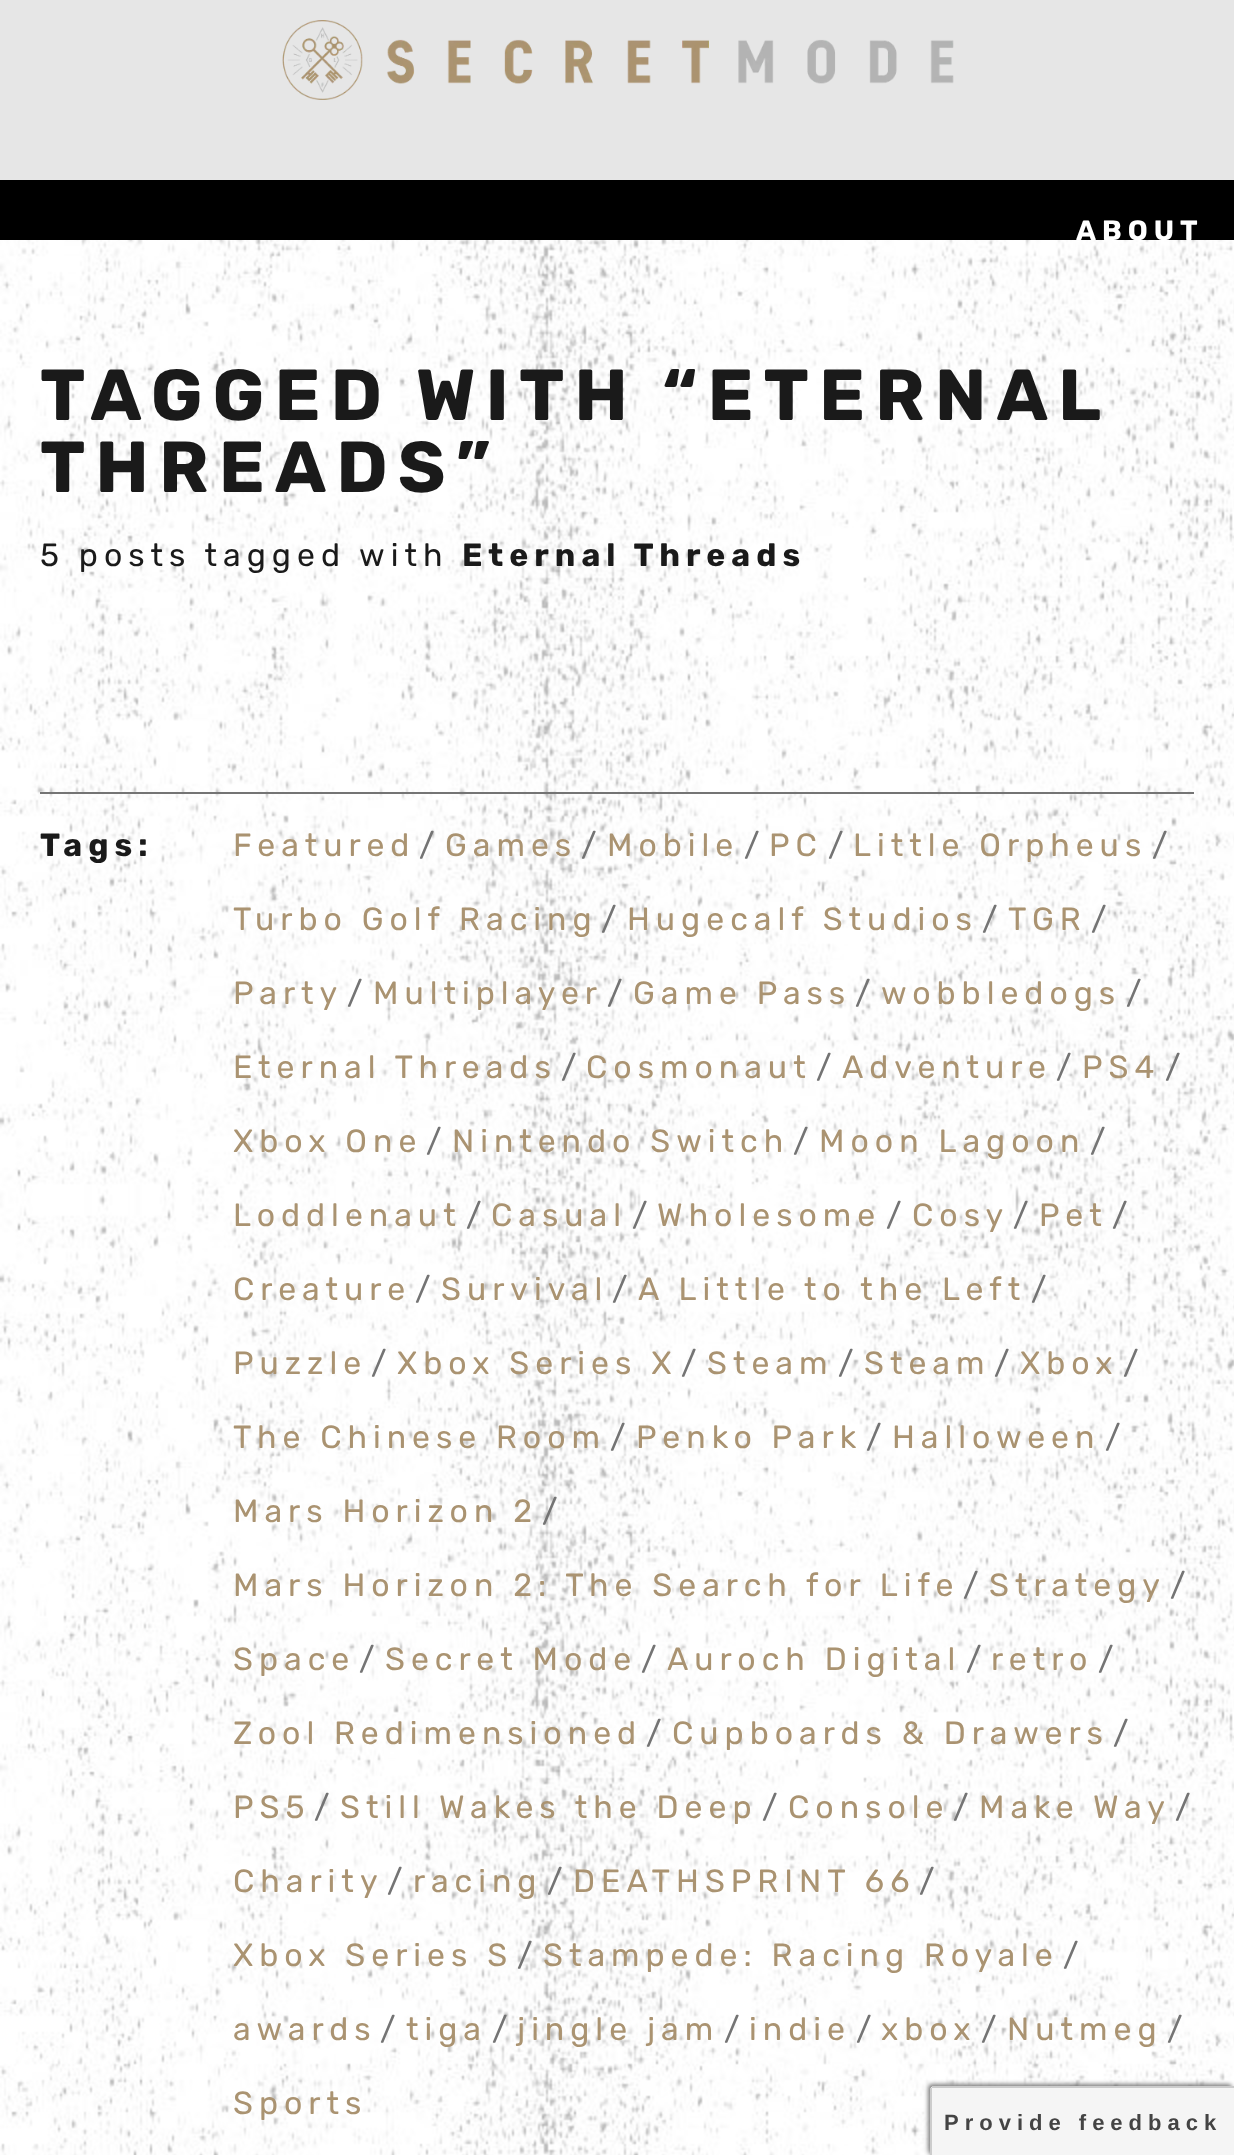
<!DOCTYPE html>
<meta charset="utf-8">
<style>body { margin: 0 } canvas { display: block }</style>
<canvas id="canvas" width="1234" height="2155"></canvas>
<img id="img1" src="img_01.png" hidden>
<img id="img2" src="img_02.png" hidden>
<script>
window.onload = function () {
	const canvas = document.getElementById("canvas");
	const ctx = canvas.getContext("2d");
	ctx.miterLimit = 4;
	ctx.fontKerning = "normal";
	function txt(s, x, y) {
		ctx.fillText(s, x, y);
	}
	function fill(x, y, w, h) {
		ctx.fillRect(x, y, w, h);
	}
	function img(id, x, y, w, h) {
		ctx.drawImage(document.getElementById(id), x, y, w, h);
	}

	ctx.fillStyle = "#FFFFFF";
	fill(0, 0, 1234, 2155);
	img("img1", 0, 240, 1234, 1915);
	ctx.fillStyle = "#000000";
	fill(0, 180, 1234, 60);
	ctx.fillStyle = "#E6E6E6";
	fill(0, 0, 1234, 180);
	img("img2", 282, 20, 672, 80);
	ctx.fillStyle = "#747474";
	fill(40, 792, 1154, 2);
	ctx.fillStyle = "rgba(0, 0, 0, 0.5)";
	ctx.filter = "blur(2px)";
	ctx.beginPath();
	ctx.roundRect(928, 2084, 304, 70, 4);
	ctx.fill();
	ctx.filter = "none";
	ctx.fillStyle = "#F5F5F5";
	ctx.beginPath();
	ctx.moveTo(934, 2086);
	ctx.lineTo(1234, 2086);
	ctx.lineTo(1234, 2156);
	ctx.lineTo(930, 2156);
	ctx.lineTo(930, 2090);
	ctx.bezierCurveTo(930, 2088, 932, 2086, 934, 2086);
	ctx.closePath();
	ctx.fill();
	ctx.fillStyle = "#CCCCCC";
	fill(932, 2086, 302, 2);
	fill(930, 2088, 2, 67);
	ctx.letterSpacing = "6px";
	ctx.font = "bold 28px Rubik";
	ctx.fillStyle = "#FFFFFF";
	txt("ABOUT", 1076, 240);
	ctx.letterSpacing = "10px";
	ctx.wordSpacing = "-1px";
	ctx.font = "bold 72px Rubik";
	ctx.fillStyle = "#1A1A1A";
	txt("TAGGED WITH “ETERNAL", 40, 420);
	ctx.wordSpacing = "0px";
	txt("THREADS”", 40, 492);
	ctx.letterSpacing = "6px";
	ctx.font = "32px Rubik";
	txt("5 posts tagged with", 40, 566);
	ctx.font = "bold 32px Rubik";
	txt("Eternal Threads", 462, 566);
	txt("Tags:", 40, 856);
	ctx.font = "32px Rubik";
	ctx.fillStyle = "#AA9371";
	txt("Featured", 233, 856);
	ctx.fillStyle = "#747474";
	txt("/", 419, 856);
	ctx.fillStyle = "#AA9371";
	txt("Games", 445, 856);
	ctx.fillStyle = "#747474";
	txt("/", 581, 856);
	ctx.fillStyle = "#AA9371";
	txt("Mobile", 607, 856);
	ctx.fillStyle = "#747474";
	txt("/", 744, 856);
	ctx.fillStyle = "#AA9371";
	txt("PC", 769, 856);
	ctx.fillStyle = "#747474";
	txt("/", 828, 856);
	ctx.fillStyle = "#AA9371";
	txt("Little Orpheus", 853, 856);
	ctx.fillStyle = "#747474";
	txt("/", 1152, 856);
	ctx.fillStyle = "#AA9371";
	txt("Turbo Golf Racing", 233, 930);
	ctx.fillStyle = "#747474";
	txt("/", 601, 930);
	ctx.fillStyle = "#AA9371";
	txt("Hugecalf Studios", 627, 930);
	ctx.fillStyle = "#747474";
	txt("/", 982, 930);
	ctx.fillStyle = "#AA9371";
	txt("TGR", 1008, 930);
	ctx.fillStyle = "#747474";
	txt("/", 1091, 930);
	ctx.fillStyle = "#AA9371";
	txt("Party", 233, 1004);
	ctx.fillStyle = "#747474";
	txt("/", 347, 1004);
	ctx.fillStyle = "#AA9371";
	txt("Multiplayer", 373, 1004);
	ctx.fillStyle = "#747474";
	txt("/", 607, 1004);
	ctx.fillStyle = "#AA9371";
	txt("Game Pass", 633, 1004);
	ctx.fillStyle = "#747474";
	txt("/", 855, 1004);
	ctx.fillStyle = "#AA9371";
	txt("wobbledogs", 881, 1004);
	ctx.fillStyle = "#747474";
	txt("/", 1126, 1004);
	ctx.fillStyle = "#AA9371";
	txt("Eternal Threads", 233, 1078);
	ctx.fillStyle = "#747474";
	txt("/", 561, 1078);
	ctx.fillStyle = "#AA9371";
	txt("Cosmonaut", 586, 1078);
	ctx.fillStyle = "#747474";
	txt("/", 816, 1078);
	ctx.fillStyle = "#AA9371";
	txt("Adventure", 842, 1078);
	ctx.fillStyle = "#747474";
	txt("/", 1056, 1078);
	ctx.fillStyle = "#AA9371";
	txt("PS4", 1082, 1078);
	ctx.fillStyle = "#747474";
	txt("/", 1165, 1078);
	ctx.fillStyle = "#AA9371";
	txt("Xbox One", 233, 1152);
	ctx.fillStyle = "#747474";
	txt("/", 426, 1152);
	ctx.fillStyle = "#AA9371";
	txt("Nintendo Switch", 452, 1152);
	ctx.fillStyle = "#747474";
	txt("/", 793, 1152);
	ctx.fillStyle = "#AA9371";
	txt("Moon Lagoon", 819, 1152);
	ctx.fillStyle = "#747474";
	txt("/", 1090, 1152);
	ctx.fillStyle = "#AA9371";
	txt("Loddlenaut", 233, 1226);
	ctx.fillStyle = "#747474";
	txt("/", 466, 1226);
	ctx.fillStyle = "#AA9371";
	txt("Casual", 491, 1226);
	ctx.fillStyle = "#747474";
	txt("/", 632, 1226);
	ctx.fillStyle = "#AA9371";
	txt("Wholesome", 657, 1226);
	ctx.fillStyle = "#747474";
	txt("/", 886, 1226);
	ctx.fillStyle = "#AA9371";
	txt("Cosy", 912, 1226);
	ctx.fillStyle = "#747474";
	txt("/", 1013, 1226);
	ctx.fillStyle = "#AA9371";
	txt("Pet", 1039, 1226);
	ctx.fillStyle = "#747474";
	txt("/", 1112, 1226);
	ctx.fillStyle = "#AA9371";
	txt("Creature", 233, 1300);
	ctx.fillStyle = "#747474";
	txt("/", 415, 1300);
	ctx.fillStyle = "#AA9371";
	txt("Survival", 441, 1300);
	ctx.fillStyle = "#747474";
	txt("/", 612, 1300);
	ctx.fillStyle = "#AA9371";
	txt("A Little to the Left", 638, 1300);
	ctx.fillStyle = "#747474";
	txt("/", 1031, 1300);
	ctx.fillStyle = "#AA9371";
	txt("Puzzle", 233, 1374);
	ctx.fillStyle = "#747474";
	txt("/", 371, 1374);
	ctx.fillStyle = "#AA9371";
	txt("Xbox Series X", 397, 1374);
	ctx.fillStyle = "#747474";
	txt("/", 681, 1374);
	ctx.fillStyle = "#AA9371";
	txt("Steam", 707, 1374);
	ctx.fillStyle = "#747474";
	txt("/", 838, 1374);
	ctx.fillStyle = "#AA9371";
	txt("Steam", 864, 1374);
	ctx.fillStyle = "#747474";
	txt("/", 994, 1374);
	ctx.fillStyle = "#AA9371";
	txt("Xbox", 1020, 1374);
	ctx.fillStyle = "#747474";
	txt("/", 1123, 1374);
	ctx.fillStyle = "#AA9371";
	txt("The Chinese Room", 233, 1448);
	ctx.fillStyle = "#747474";
	txt("/", 610, 1448);
	ctx.fillStyle = "#AA9371";
	txt("Penko Park", 636, 1448);
	ctx.fillStyle = "#747474";
	txt("/", 866, 1448);
	ctx.fillStyle = "#AA9371";
	txt("Halloween", 892, 1448);
	ctx.fillStyle = "#747474";
	txt("/", 1105, 1448);
	ctx.fillStyle = "#AA9371";
	txt("Mars Horizon 2", 233, 1522);
	ctx.fillStyle = "#747474";
	txt("/", 542, 1522);
	ctx.fillStyle = "#AA9371";
	txt("Mars Horizon 2: The Search for Life", 233, 1596);
	ctx.fillStyle = "#747474";
	txt("/", 963, 1596);
	ctx.fillStyle = "#AA9371";
	txt("Strategy", 989, 1596);
	ctx.fillStyle = "#747474";
	txt("/", 1170, 1596);
	ctx.fillStyle = "#AA9371";
	txt("Space", 233, 1670);
	ctx.fillStyle = "#747474";
	txt("/", 359, 1670);
	ctx.fillStyle = "#AA9371";
	txt("Secret Mode", 385, 1670);
	ctx.fillStyle = "#747474";
	txt("/", 641, 1670);
	ctx.fillStyle = "#AA9371";
	txt("Auroch Digital", 667, 1670);
	ctx.fillStyle = "#747474";
	txt("/", 966, 1670);
	ctx.fillStyle = "#AA9371";
	txt("retro", 991, 1670);
	ctx.fillStyle = "#747474";
	txt("/", 1098, 1670);
	ctx.fillStyle = "#AA9371";
	txt("Zool Redimensioned", 233, 1744);
	ctx.fillStyle = "#747474";
	txt("/", 646, 1744);
	ctx.fillStyle = "#AA9371";
	txt("Cupboards & Drawers", 672, 1744);
	ctx.fillStyle = "#747474";
	txt("/", 1113, 1744);
	ctx.fillStyle = "#AA9371";
	txt("PS5", 233, 1818);
	ctx.fillStyle = "#747474";
	txt("/", 314, 1818);
	ctx.fillStyle = "#AA9371";
	txt("Still Wakes the Deep", 340, 1818);
	ctx.fillStyle = "#747474";
	txt("/", 762, 1818);
	ctx.fillStyle = "#AA9371";
	txt("Console", 788, 1818);
	ctx.fillStyle = "#747474";
	txt("/", 953, 1818);
	ctx.fillStyle = "#AA9371";
	txt("Make Way", 979, 1818);
	ctx.fillStyle = "#747474";
	txt("/", 1175, 1818);
	ctx.fillStyle = "#AA9371";
	txt("Charity", 233, 1892);
	ctx.fillStyle = "#747474";
	txt("/", 387, 1892);
	ctx.fillStyle = "#AA9371";
	txt("racing", 413, 1892);
	ctx.fillStyle = "#747474";
	txt("/", 547, 1892);
	ctx.fillStyle = "#AA9371";
	txt("DEATHSPRINT 66", 573, 1892);
	ctx.fillStyle = "#747474";
	txt("/", 919, 1892);
	ctx.fillStyle = "#AA9371";
	txt("Xbox Series S", 233, 1966);
	ctx.fillStyle = "#747474";
	txt("/", 517, 1966);
	ctx.fillStyle = "#AA9371";
	txt("Stampede: Racing Royale", 543, 1966);
	ctx.fillStyle = "#747474";
	txt("/", 1063, 1966);
	ctx.fillStyle = "#AA9371";
	txt("awards", 233, 2040);
	ctx.fillStyle = "#747474";
	txt("/", 380, 2040);
	ctx.fillStyle = "#AA9371";
	txt("tiga", 406, 2040);
	ctx.fillStyle = "#747474";
	txt("/", 492, 2040);
	ctx.fillStyle = "#AA9371";
	txt("jingle jam", 517, 2040);
	ctx.fillStyle = "#747474";
	txt("/", 724, 2040);
	ctx.fillStyle = "#AA9371";
	txt("indie", 749, 2040);
	ctx.fillStyle = "#747474";
	txt("/", 856, 2040);
	ctx.fillStyle = "#AA9371";
	txt("xbox", 881, 2040);
	ctx.fillStyle = "#747474";
	txt("/", 981, 2040);
	ctx.fillStyle = "#AA9371";
	txt("Nutmeg", 1007, 2040);
	ctx.fillStyle = "#747474";
	txt("/", 1167, 2040);
	ctx.fillStyle = "#AA9371";
	txt("Sports", 233, 2114);
	ctx.font = "bold 22px Liberation Sans";
	ctx.fillStyle = "#444444";
	txt("Provide feedback", 944, 2130);
};
</script>
